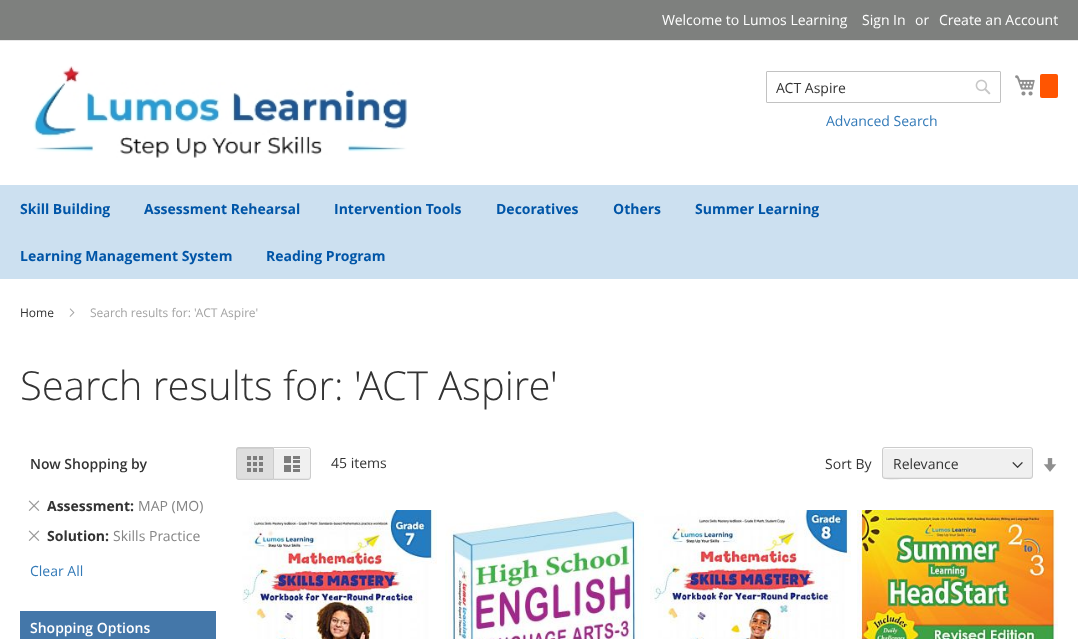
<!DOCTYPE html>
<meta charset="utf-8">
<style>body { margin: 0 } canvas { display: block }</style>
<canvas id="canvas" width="1078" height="639"></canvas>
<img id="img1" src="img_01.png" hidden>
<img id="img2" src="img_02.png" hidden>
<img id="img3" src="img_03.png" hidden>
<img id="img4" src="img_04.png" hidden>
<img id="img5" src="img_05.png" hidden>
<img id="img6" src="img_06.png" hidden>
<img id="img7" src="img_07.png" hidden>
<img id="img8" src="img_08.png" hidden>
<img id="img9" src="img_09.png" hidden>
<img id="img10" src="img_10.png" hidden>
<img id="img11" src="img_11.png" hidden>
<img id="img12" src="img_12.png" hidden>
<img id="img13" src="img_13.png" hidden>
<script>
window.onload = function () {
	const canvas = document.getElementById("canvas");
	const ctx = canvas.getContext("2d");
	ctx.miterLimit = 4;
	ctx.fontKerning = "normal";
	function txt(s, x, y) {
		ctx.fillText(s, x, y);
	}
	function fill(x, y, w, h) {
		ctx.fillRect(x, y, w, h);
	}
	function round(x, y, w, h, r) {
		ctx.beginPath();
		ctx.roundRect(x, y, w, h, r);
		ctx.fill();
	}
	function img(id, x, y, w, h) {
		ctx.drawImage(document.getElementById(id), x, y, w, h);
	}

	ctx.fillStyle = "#FFFFFF";
	fill(0, 0, 1078, 639);
	ctx.fillStyle = "#7E807E";
	fill(0, 0, 1078, 40);
	ctx.fillStyle = "#E8E8E8";
	fill(0, 40, 1078, 1);
	img("img1", 33, 66, 375, 92);
	ctx.beginPath();
	ctx.roundRect(766.5, 71.5, 234, 31, 0.5);
	ctx.strokeStyle = "#C2C2C2";
	ctx.stroke();
	img("img2", 975, 79, 16, 16);
	img("img3", 1015, 75, 20, 21);
	ctx.fillStyle = "#FF5501";
	round(1040, 74, 18, 24, 2);
	ctx.fillStyle = "#CCE0F0";
	fill(0, 185, 1078, 94);
	img("img4", 69, 308, 6, 9);
	img("img5", 28, 500, 12, 11);
	img("img5", 28, 530, 12, 11);
	ctx.fillStyle = "#4477A9";
	fill(20, 611, 196, 28);
	ctx.fillStyle = "#DEDEDE";
	ctx.beginPath();
	ctx.roundRect(236, 447, 37, 33, [3, 0, 0, 3]);
	ctx.fill();
	ctx.fillStyle = "#D9D9D9";
	ctx.beginPath();
	ctx.moveTo(237, 476);
	ctx.lineTo(237, 477);
	ctx.bezierCurveTo(237, 478, 238, 479, 239, 479);
	ctx.lineTo(273, 479);
	ctx.lineTo(273, 478);
	ctx.lineTo(239, 478);
	ctx.bezierCurveTo(238, 478, 237, 477, 237, 476);
	ctx.closePath();
	ctx.fill();
	ctx.fillStyle = "#D0D0D0";
	ctx.beginPath();
	ctx.moveTo(239, 449);
	ctx.lineTo(273, 449);
	ctx.lineTo(273, 448);
	ctx.lineTo(239, 448);
	ctx.bezierCurveTo(238, 448, 237, 449, 237, 450);
	ctx.lineTo(237, 451);
	ctx.bezierCurveTo(237, 450, 238, 449, 239, 449);
	ctx.closePath();
	ctx.fill();
	ctx.fillStyle = "#CCCCCC";
	ctx.beginPath();
	ctx.moveTo(239, 447);
	ctx.lineTo(273, 447);
	ctx.lineTo(273, 480);
	ctx.lineTo(239, 480);
	ctx.bezierCurveTo(237.5, 480, 236, 478.5, 236, 477);
	ctx.lineTo(236, 450);
	ctx.bezierCurveTo(236, 448.5, 237.5, 447, 239, 447);
	ctx.closePath();
	ctx.moveTo(239, 448);
	ctx.lineTo(273, 448);
	ctx.lineTo(273, 479);
	ctx.lineTo(239, 479);
	ctx.bezierCurveTo(238, 479, 237, 478, 237, 477);
	ctx.lineTo(237, 450);
	ctx.bezierCurveTo(237, 449, 238, 448, 239, 448);
	ctx.closePath();
	ctx.fill("evenodd");
	img("img6", 247, 456, 16, 16);
	ctx.fillStyle = "#F0F0F0";
	ctx.beginPath();
	ctx.roundRect(273, 447, 38, 33, [0, 3, 3, 0]);
	ctx.fill();
	ctx.fillStyle = "#E5E5E5";
	ctx.beginPath();
	ctx.moveTo(274, 478);
	ctx.lineTo(274, 479);
	ctx.lineTo(308, 479);
	ctx.bezierCurveTo(309, 479, 310, 478, 310, 477);
	ctx.lineTo(310, 476);
	ctx.bezierCurveTo(310, 477, 309, 478, 308, 478);
	ctx.closePath();
	ctx.fill();
	ctx.fillStyle = "#FFFFFF";
	ctx.beginPath();
	ctx.moveTo(274, 449);
	ctx.lineTo(308, 449);
	ctx.bezierCurveTo(309, 449, 310, 450, 310, 451);
	ctx.lineTo(310, 450);
	ctx.bezierCurveTo(310, 449, 309, 448, 308, 448);
	ctx.lineTo(274, 448);
	ctx.closePath();
	ctx.fill();
	ctx.beginPath();
	ctx.roundRect(273.5, 447.5, 37, 32, [0, 2.5, 2.5, 0]);
	ctx.strokeStyle = "#CCCCCC";
	ctx.stroke();
	img("img7", 284, 456, 16, 16);
	ctx.fillStyle = "#F0F0F0";
	round(882, 447, 151, 32, 3);
	img("img8", 1012, 462, 11, 6);
	ctx.fillStyle = "rgba(204, 204, 204, 0.3)";
	ctx.beginPath();
	ctx.moveTo(883, 475);
	ctx.bezierCurveTo(883, 484, 906, 478, 909, 478);
	ctx.lineTo(1031, 478);
	ctx.bezierCurveTo(1032, 477, 1032, 476, 1032, 475);
	ctx.bezierCurveTo(1032, 476, 1031, 477, 1030, 477);
	ctx.lineTo(885, 477);
	ctx.bezierCurveTo(884, 477, 883, 476, 883, 475);
	ctx.closePath();
	ctx.fill();
	ctx.fillStyle = "#FFFFFF";
	ctx.beginPath();
	ctx.moveTo(885, 449);
	ctx.lineTo(1030, 449);
	ctx.bezierCurveTo(1031, 449, 1032, 450, 1032, 451);
	ctx.bezierCurveTo(1032, 450, 1032, 449, 1031, 448);
	ctx.lineTo(909, 448);
	ctx.bezierCurveTo(906, 448, 883, 442, 883, 451);
	ctx.bezierCurveTo(883, 450, 884, 449, 885, 449);
	ctx.closePath();
	ctx.fill();
	ctx.beginPath();
	ctx.roundRect(882.5, 447.5, 150, 31, 2.5);
	ctx.stroke();
	img("img9", 1043, 458, 14, 14);
	img("img10", 242, 510, 195, 129);
	img("img11", 445, 510, 199, 129);
	img("img12", 650, 510, 201, 129);
	img("img13", 857, 510, 201, 129);
	ctx.font = "14px Open Sans";
	txt("Welcome to Lumos Learning", 662, 25);
	txt("Sign In", 862, 25);
	txt("or", 915, 25);
	txt("Create an Account", 939, 25);
	ctx.fillStyle = "#333333";
	txt("ACT Aspire", 776, 93);
	ctx.fillStyle = "#337AB7";
	txt("Advanced Search", 826, 126);
	ctx.font = "bold 14px Open Sans";
	ctx.fillStyle = "#0055A7";
	txt("Skill Building", 20, 214);
	txt("Assessment Rehearsal", 144, 214);
	txt("Intervention Tools", 334, 214);
	txt("Decoratives", 496, 214);
	txt("Others", 613, 214);
	txt("Summer Learning", 695, 214);
	txt("Learning Management System", 20, 261);
	txt("Reading Program", 266, 261);
	ctx.font = "12px Open Sans";
	ctx.fillStyle = "#333333";
	txt("Home", 20, 317);
	ctx.fillStyle = "#A3A3A3";
	txt("Search results for: 'ACT Aspire'", 90, 317);
	ctx.font = "300 40px Open Sans";
	ctx.fillStyle = "#333333";
	txt("Search results for: 'ACT Aspire'", 20, 400);
	ctx.font = "600 14px Open Sans";
	txt("Now Shopping by", 30, 469);
	ctx.font = "bold 14px Open Sans";
	txt("Assessment:", 47, 511);
	ctx.font = "14px Open Sans";
	ctx.fillStyle = "#858585";
	txt("MAP (MO)", 138, 511);
	ctx.font = "bold 14px Open Sans";
	ctx.fillStyle = "#333333";
	txt("Solution:", 47, 541);
	ctx.font = "14px Open Sans";
	ctx.fillStyle = "#858585";
	txt("Skills Practice", 113, 541);
	ctx.fillStyle = "#337AB7";
	txt("Clear All", 30, 576);
	ctx.font = "600 14px Open Sans";
	ctx.fillStyle = "#FFFFFF";
	txt("Shopping Options", 30, 633);
	ctx.font = "14px Open Sans";
	ctx.fillStyle = "#333333";
	txt("45 items", 331, 468);
	txt("Sort By", 825, 469);
	txt("Relevance", 893, 469);
};
</script>
